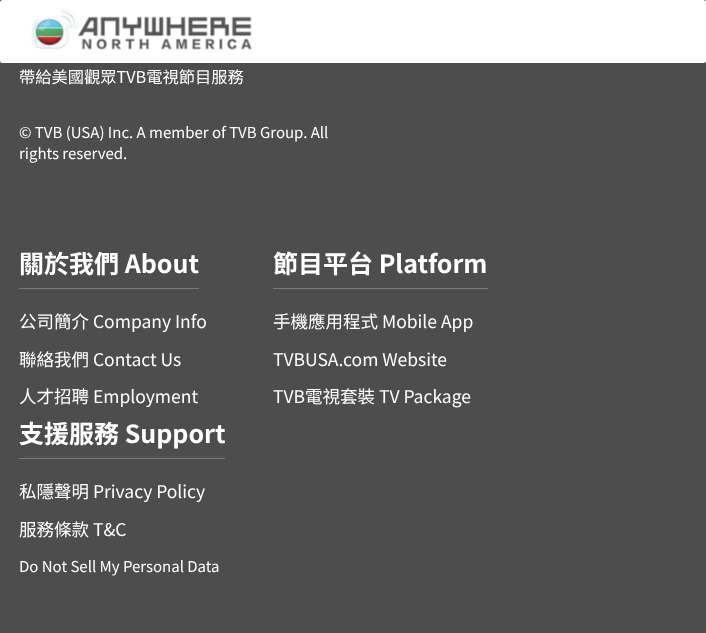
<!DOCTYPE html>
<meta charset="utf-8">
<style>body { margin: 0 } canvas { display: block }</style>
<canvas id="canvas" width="706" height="633"></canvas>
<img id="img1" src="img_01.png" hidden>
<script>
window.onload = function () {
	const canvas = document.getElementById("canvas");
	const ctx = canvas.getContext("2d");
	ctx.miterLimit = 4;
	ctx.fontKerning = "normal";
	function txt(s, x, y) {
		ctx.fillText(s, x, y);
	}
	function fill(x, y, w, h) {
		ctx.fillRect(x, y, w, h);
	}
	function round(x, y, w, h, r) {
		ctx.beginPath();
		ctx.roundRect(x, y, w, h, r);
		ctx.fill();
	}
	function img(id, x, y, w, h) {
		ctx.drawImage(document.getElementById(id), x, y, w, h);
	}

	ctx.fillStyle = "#4D4D4D";
	fill(0, 0, 706, 633);
	ctx.fillStyle = "#FFFFFF";
	round(0, 0, 706, 63, 2.5);
	img("img1", 31, 8, 221, 42);
	ctx.fillStyle = "#7A7A7A";
	fill(19, 288, 180, 1);
	fill(273, 288, 215, 1);
	fill(19, 458, 206, 1);
	ctx.font = "16.25px Noto Sans HK";
	ctx.fillStyle = "#FFFFFF";
	txt("帶給美國觀眾TVB電視節目服務", 19, 83);
	ctx.font = "15px Noto Sans HK";
	txt("© TVB (USA) Inc. A member of TVB Group. All", 19, 138);
	txt("rights reserved.", 19, 159);
	ctx.font = "bold 25px Noto Sans HK";
	txt("關於我們 About", 19, 273);
	ctx.font = "17.5px Noto Sans HK";
	txt("公司簡介 Company Info", 19, 328);
	txt("聯絡我們 Contact Us", 19, 366);
	txt("人才招聘 Employment", 19, 403);
	ctx.font = "bold 25px Noto Sans HK";
	txt("節目平台 Platform", 273, 273);
	ctx.font = "17.5px Noto Sans HK";
	txt("手機應用程式 Mobile App", 273, 328);
	txt("TVBUSA.com Website", 273, 366);
	txt("TVB電視套裝 TV Package", 273, 403);
	ctx.font = "bold 25px Noto Sans HK";
	txt("支援服務 Support", 19, 443);
	ctx.font = "17.5px Noto Sans HK";
	txt("私隱聲明 Privacy Policy", 19, 498);
	txt("服務條款 T&C", 19, 536);
	ctx.font = "15px Noto Sans HK";
	txt("Do Not Sell My Personal Data", 19, 572);
};
</script>
